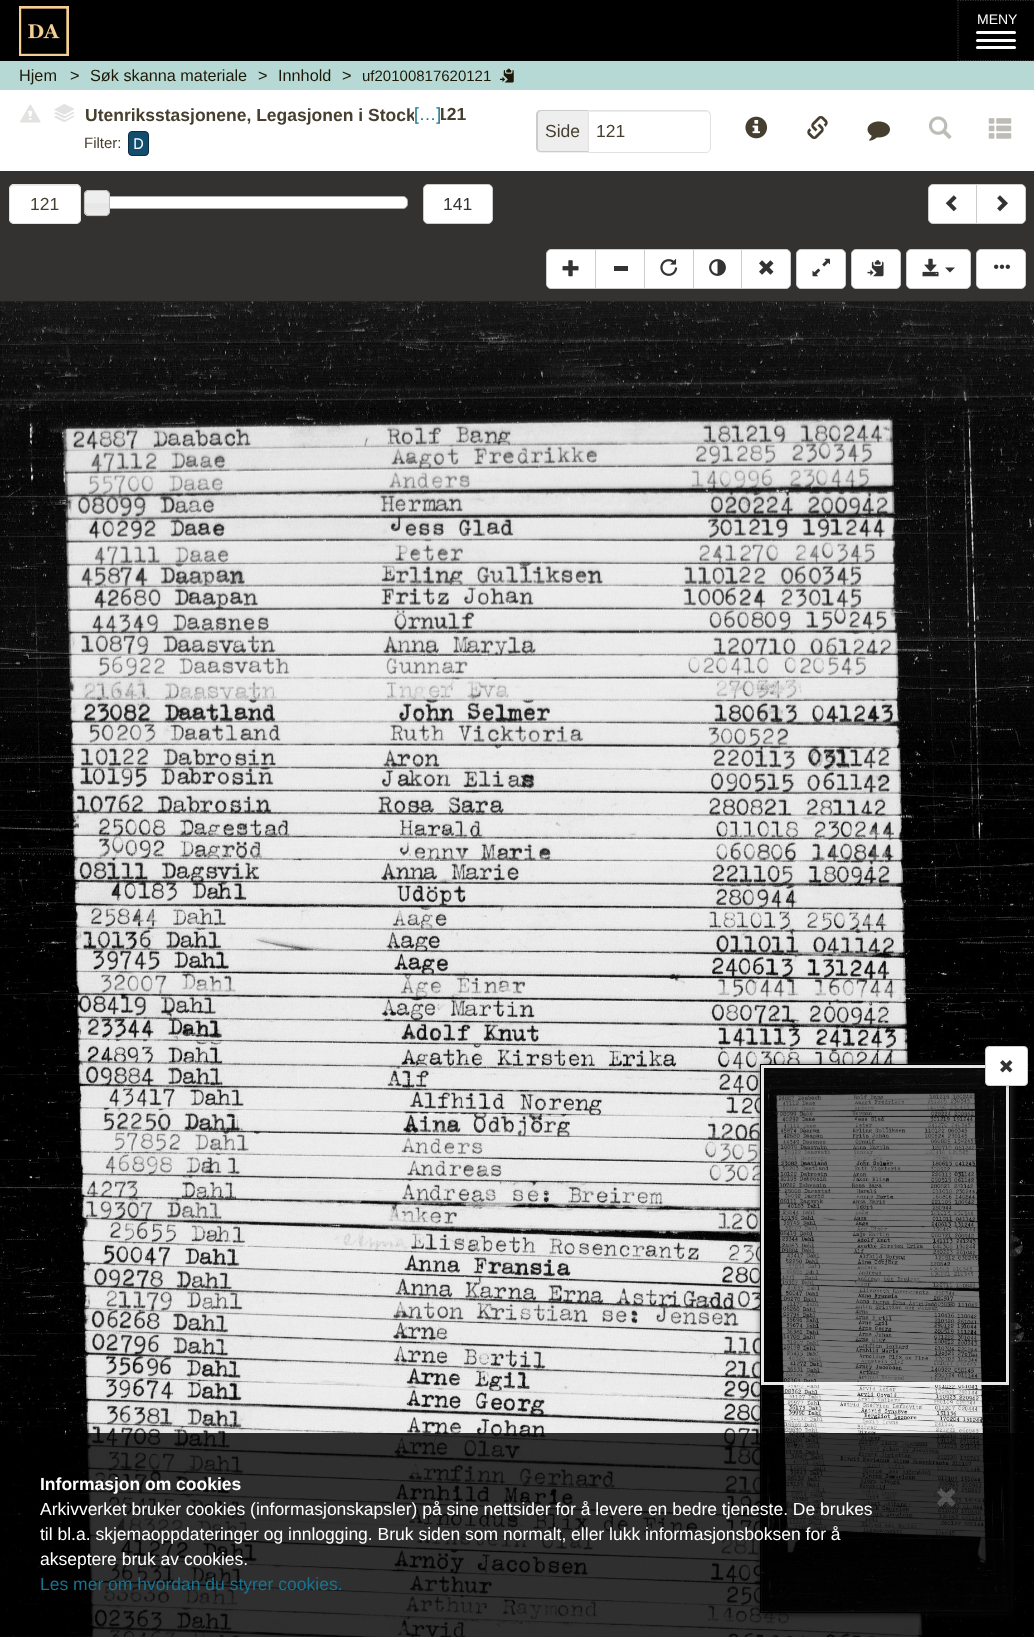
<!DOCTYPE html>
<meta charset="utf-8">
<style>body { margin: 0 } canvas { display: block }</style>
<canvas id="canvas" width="1034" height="1637"></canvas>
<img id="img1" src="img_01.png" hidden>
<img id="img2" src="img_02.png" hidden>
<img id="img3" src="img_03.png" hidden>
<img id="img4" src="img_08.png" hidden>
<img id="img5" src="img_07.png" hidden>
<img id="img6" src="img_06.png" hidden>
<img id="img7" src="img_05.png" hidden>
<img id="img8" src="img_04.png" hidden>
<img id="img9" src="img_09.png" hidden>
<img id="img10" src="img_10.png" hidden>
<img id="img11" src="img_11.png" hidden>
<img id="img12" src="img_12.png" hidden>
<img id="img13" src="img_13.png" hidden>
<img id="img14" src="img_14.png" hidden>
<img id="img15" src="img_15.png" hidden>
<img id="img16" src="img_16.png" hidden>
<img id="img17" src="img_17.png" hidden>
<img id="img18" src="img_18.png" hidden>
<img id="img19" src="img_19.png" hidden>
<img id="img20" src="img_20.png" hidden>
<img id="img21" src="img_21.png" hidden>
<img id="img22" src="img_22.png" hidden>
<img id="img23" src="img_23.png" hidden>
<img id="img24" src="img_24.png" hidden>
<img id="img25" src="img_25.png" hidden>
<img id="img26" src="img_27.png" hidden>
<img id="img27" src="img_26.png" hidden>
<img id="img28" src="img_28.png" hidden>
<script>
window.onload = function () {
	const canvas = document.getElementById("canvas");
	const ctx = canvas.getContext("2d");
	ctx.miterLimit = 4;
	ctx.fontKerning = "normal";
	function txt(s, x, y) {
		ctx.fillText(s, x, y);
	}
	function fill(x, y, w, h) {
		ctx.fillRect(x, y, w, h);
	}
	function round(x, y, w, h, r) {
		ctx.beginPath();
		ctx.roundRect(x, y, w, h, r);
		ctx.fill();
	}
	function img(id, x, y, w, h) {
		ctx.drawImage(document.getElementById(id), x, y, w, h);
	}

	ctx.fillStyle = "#333231";
	fill(0, 0, 1034, 1637);
	ctx.fillStyle = "#000000";
	fill(0, 0, 1034, 61);
	img("img1", 19, 6, 50, 50);
	ctx.beginPath();
	ctx.moveTo(957.5, 0.5);
	ctx.lineTo(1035, 0.5);
	ctx.strokeStyle = "#333333";
	ctx.lineWidth = 1.2;
	ctx.setLineDash([1.25, 1.25]);
	ctx.stroke();
	ctx.beginPath();
	ctx.moveTo(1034.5, 0);
	ctx.lineTo(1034.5, 61);
	ctx.stroke();
	ctx.fillStyle = "#B6D9D6";
	fill(0, 61, 1034, 29);
	ctx.beginPath();
	ctx.moveTo(957.5, 60.5);
	ctx.lineTo(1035, 60.5);
	ctx.stroke();
	ctx.beginPath();
	ctx.moveTo(958, 0);
	ctx.lineTo(958, 61);
	ctx.stroke();
	ctx.fillStyle = "#FFFFFF";
	round(976, 31, 40, 3, 1.5);
	round(976, 39, 40, 3, 1.5);
	round(976, 46, 40, 3, 1.5);
	img("img2", 500, 68, 14, 15);
	fill(0, 90, 1034, 81);
	img("img3", 20, 104, 21, 19);
	img("img4", 54, 115, 21, 7);
	img("img5", 56, 113, 17, 7);
	img("img6", 54, 111, 21, 8);
	img("img7", 56, 110, 17, 6);
	img("img8", 54, 104, 20, 11);
	ctx.fillStyle = "#124D6E";
	ctx.beginPath();
	ctx.roundRect(128.5, 131.5, 20, 24, 3.5);
	ctx.fill();
	ctx.strokeStyle = "#0B2E42";
	ctx.lineWidth = 1;
	ctx.setLineDash([]);
	ctx.stroke();
	ctx.fillStyle = "#EEEEEE";
	ctx.beginPath();
	ctx.roundRect(536, 110, 52, 43, [5, 0, 0, 5]);
	ctx.fill();
	ctx.fillStyle = "#CCCCCC";
	ctx.beginPath();
	ctx.moveTo(541, 110);
	ctx.lineTo(588, 110);
	ctx.lineTo(588, 152);
	ctx.lineTo(541, 152);
	ctx.bezierCurveTo(538, 152, 536, 150, 536, 148);
	ctx.lineTo(536, 115);
	ctx.bezierCurveTo(536, 112, 538, 110, 541, 110);
	ctx.closePath();
	ctx.moveTo(541, 111);
	ctx.lineTo(588, 111);
	ctx.lineTo(588, 151);
	ctx.lineTo(541, 151);
	ctx.bezierCurveTo(539, 151, 538, 150, 538, 148);
	ctx.lineTo(538, 115);
	ctx.bezierCurveTo(538, 113, 539, 111, 541, 111);
	ctx.closePath();
	ctx.fill("evenodd");
	ctx.fillStyle = "#ECECEC";
	ctx.beginPath();
	ctx.moveTo(589, 112);
	ctx.lineTo(706, 112);
	ctx.bezierCurveTo(708, 112, 710, 114, 710, 116);
	ctx.lineTo(710, 115);
	ctx.bezierCurveTo(710, 113, 708, 111, 706, 111);
	ctx.lineTo(589, 111);
	ctx.closePath();
	ctx.fill();
	ctx.beginPath();
	ctx.roundRect(588.5, 110.5, 122, 42, [0, 4.5, 4.5, 0]);
	ctx.strokeStyle = "#E3E2E0";
	ctx.stroke();
	img("img9", 745, 116, 23, 23);
	img("img10", 807, 116, 21, 23);
	img("img11", 867, 121, 23, 20);
	img("img12", 929, 116, 23, 23);
	img("img13", 988, 118, 24, 21);
	ctx.fillStyle = "#FFFFFF";
	round(9, 184, 72, 40, 5);
	ctx.fillStyle = "#ECECEC";
	ctx.beginPath();
	ctx.moveTo(14, 186);
	ctx.lineTo(76, 186);
	ctx.bezierCurveTo(78, 186, 80, 188, 80, 190);
	ctx.bezierCurveTo(80, 183, 71, 185, 66, 185);
	ctx.lineTo(24, 185);
	ctx.bezierCurveTo(19, 185, 10, 183, 10, 190);
	ctx.bezierCurveTo(10, 188, 12, 186, 14, 186);
	ctx.closePath();
	ctx.fill();
	ctx.beginPath();
	ctx.roundRect(9.5, 184.5, 71, 39, 4.5);
	ctx.stroke();
	ctx.fillStyle = "#FFFFFF";
	ctx.beginPath();
	ctx.roundRect(94.5, 196.5, 313, 12, 4.5);
	ctx.fill();
	ctx.strokeStyle = "#AAAAAA";
	ctx.stroke();
	img("img14", 83, 190, 27, 27);
	ctx.beginPath();
	ctx.roundRect(84.5, 190.5, 25, 25, 4.5);
	ctx.strokeStyle = "#BFBEBD";
	ctx.stroke();
	ctx.beginPath();
	ctx.roundRect(423.5, 184.5, 69, 39, 4.5);
	ctx.fill();
	ctx.strokeStyle = "#CCCCCC";
	ctx.stroke();
	ctx.beginPath();
	ctx.roundRect(928.5, 184.5, 49, 39, [4.5, 0, 0, 4.5]);
	ctx.fill();
	ctx.stroke();
	img("img15", 945, 195, 12, 17);
	ctx.beginPath();
	ctx.roundRect(976.5, 184.5, 49, 39, [0, 4.5, 4.5, 0]);
	ctx.fill();
	ctx.stroke();
	img("img16", 997, 195, 11, 17);
	ctx.beginPath();
	ctx.roundRect(546.5, 249.5, 49, 39, [4.5, 0, 0, 4.5]);
	ctx.fill();
	ctx.stroke();
	img("img17", 562, 260, 17, 17);
	ctx.beginPath();
	ctx.rect(595.5, 249.5, 49, 39);
	ctx.fill();
	ctx.stroke();
	ctx.fillStyle = "#333333";
	fill(614, 266, 14, 5);
	ctx.fillStyle = "#FFFFFF";
	ctx.beginPath();
	ctx.rect(644.5, 249.5, 49, 39);
	ctx.fill();
	ctx.stroke();
	img("img18", 660, 258, 18, 18);
	fill(694, 250, 47, 38);
	ctx.strokeRect(693.5, 249.5, 49, 39);
	img("img19", 709, 259, 17, 17);
	ctx.beginPath();
	ctx.roundRect(741.5, 249.5, 49, 39, [0, 4.5, 4.5, 0]);
	ctx.fill();
	ctx.stroke();
	img("img20", 759, 260, 15, 15);
	ctx.beginPath();
	ctx.roundRect(796.5, 249.5, 49, 39, 4.5);
	ctx.fill();
	ctx.stroke();
	img("img21", 812, 258, 18, 19);
	ctx.beginPath();
	ctx.roundRect(851.5, 249.5, 49, 39, 4.5);
	ctx.fill();
	ctx.stroke();
	img("img22", 867, 260, 17, 17);
	ctx.beginPath();
	ctx.roundRect(906.5, 249.5, 64, 39, 4.5);
	ctx.fill();
	ctx.stroke();
	img("img23", 922, 258, 17, 19);
	ctx.fillStyle = "#333333";
	ctx.beginPath();
	ctx.moveTo(945, 267.5);
	ctx.lineTo(955, 267.5);
	ctx.lineTo(950, 272.5);
	ctx.closePath();
	ctx.fill();
	ctx.fillStyle = "#FFFFFF";
	ctx.beginPath();
	ctx.roundRect(976.5, 249.5, 49, 39, 4.5);
	ctx.fill();
	ctx.stroke();
	img("img24", 994, 264, 16, 5);
	ctx.save();
	ctx.beginPath();
	ctx.rect(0, 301, 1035, 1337);
	ctx.clip();
	ctx.fillStyle = "rgba(0, 0, 0, 0.3)";
	ctx.filter = "blur(9.5px)";
	ctx.beginPath();
	ctx.rect(0, 303, 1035, 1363);
	ctx.fill();
	ctx.filter = "none";
	ctx.restore();
	img("img25", 0, 301, 1034, 1336);
	ctx.fillStyle = "#323232";
	ctx.filter = "blur(3px)";
	ctx.beginPath();
	ctx.rect(761, 1065, 250, 549);
	ctx.fill();
	ctx.filter = "none";
	ctx.strokeStyle = "#000000";
	ctx.strokeRect(760.5, 1064.5, 249, 548);
	img("img26", 761, 1065, 248, 547);
	ctx.fillStyle = "rgba(0, 0, 0, 0.5)";
	fill(761, 1065, 248, 320);
	ctx.strokeStyle = "rgba(255, 255, 255, 0.9)";
	ctx.lineWidth = 3;
	ctx.strokeRect(762.5, 1066.5, 245, 317);
	ctx.fillStyle = "rgba(0, 0, 0, 0.1)";
	ctx.filter = "blur(0.5px)";
	ctx.beginPath();
	ctx.roundRect(985, 1048, 43, 40, 4);
	ctx.fill();
	ctx.filter = "none";
	ctx.fillStyle = "#FFFFFF";
	ctx.beginPath();
	ctx.roundRect(985.5, 1046.5, 42, 39, 3.5);
	ctx.fill();
	ctx.strokeStyle = "#CCCCCC";
	ctx.lineWidth = 1;
	ctx.stroke();
	img("img27", 1000, 1060, 13, 13);
	ctx.fillStyle = "rgba(0, 0, 0, 0.8)";
	fill(0, 1433, 1034, 204);
	img("img28", 937, 1488, 19, 19);
	ctx.font = "14px Liberation Sans";
	ctx.fillStyle = "#FFFFFF";
	txt("MENY", 977, 24);
	ctx.font = "16.25px Liberation Sans";
	ctx.fillStyle = "#1D1705";
	txt("Hjem", 19, 81);
	txt(">", 70, 81);
	txt("Søk skanna materiale", 90, 81);
	txt(">", 258, 81);
	txt("Innhold", 278, 81);
	txt(">", 342, 81);
	ctx.font = "15px Liberation Sans";
	txt("uf20100817620121", 362, 81);
	ctx.font = "bold 17.5px Liberation Sans";
	ctx.fillStyle = "#463E2F";
	txt("Utenriksstasjonene, Legasjonen i Stock", 85, 121);
	txt("121", 437, 120);
	ctx.fillStyle = "#FFFFFF";
	fill(414, 108, 27, 13);
	ctx.font = "17.5px Liberation Sans";
	ctx.fillStyle = "#177391";
	txt("[…]", 414, 120);
	ctx.font = "15px Liberation Sans";
	ctx.fillStyle = "#463E2F";
	txt("Filter:", 84, 148);
	ctx.font = "15px Noto Sans";
	ctx.fillStyle = "#FFFFFF";
	txt("D", 133, 149);
	ctx.font = "17.5px Liberation Sans";
	ctx.fillStyle = "#463E2F";
	txt("Side", 545, 137);
	txt("121", 596, 137);
	txt("121", 30, 210);
	ctx.fillStyle = "#333333";
	txt("141", 443, 210);
	ctx.font = "bold 17.5px Liberation Sans";
	ctx.fillStyle = "#FFFFFF";
	txt("Informasjon om cookies", 40, 1490);
	ctx.font = "17.5px Liberation Sans";
	txt("Arkivverket bruker cookies (informasjonskapsler) på sine nettsider for å levere en bedre tjeneste. De brukes", 40, 1515);
	txt("til bl.a. skjemaoppdateringer og innlogging. Bruk siden som normalt, eller lukk informasjonsboksen for å", 40, 1540);
	txt("akseptere bruk av cookies.", 40, 1565);
	ctx.fillStyle = "#177391";
	txt("Les mer om hvordan du styrer cookies.", 40, 1590);
};
</script>
